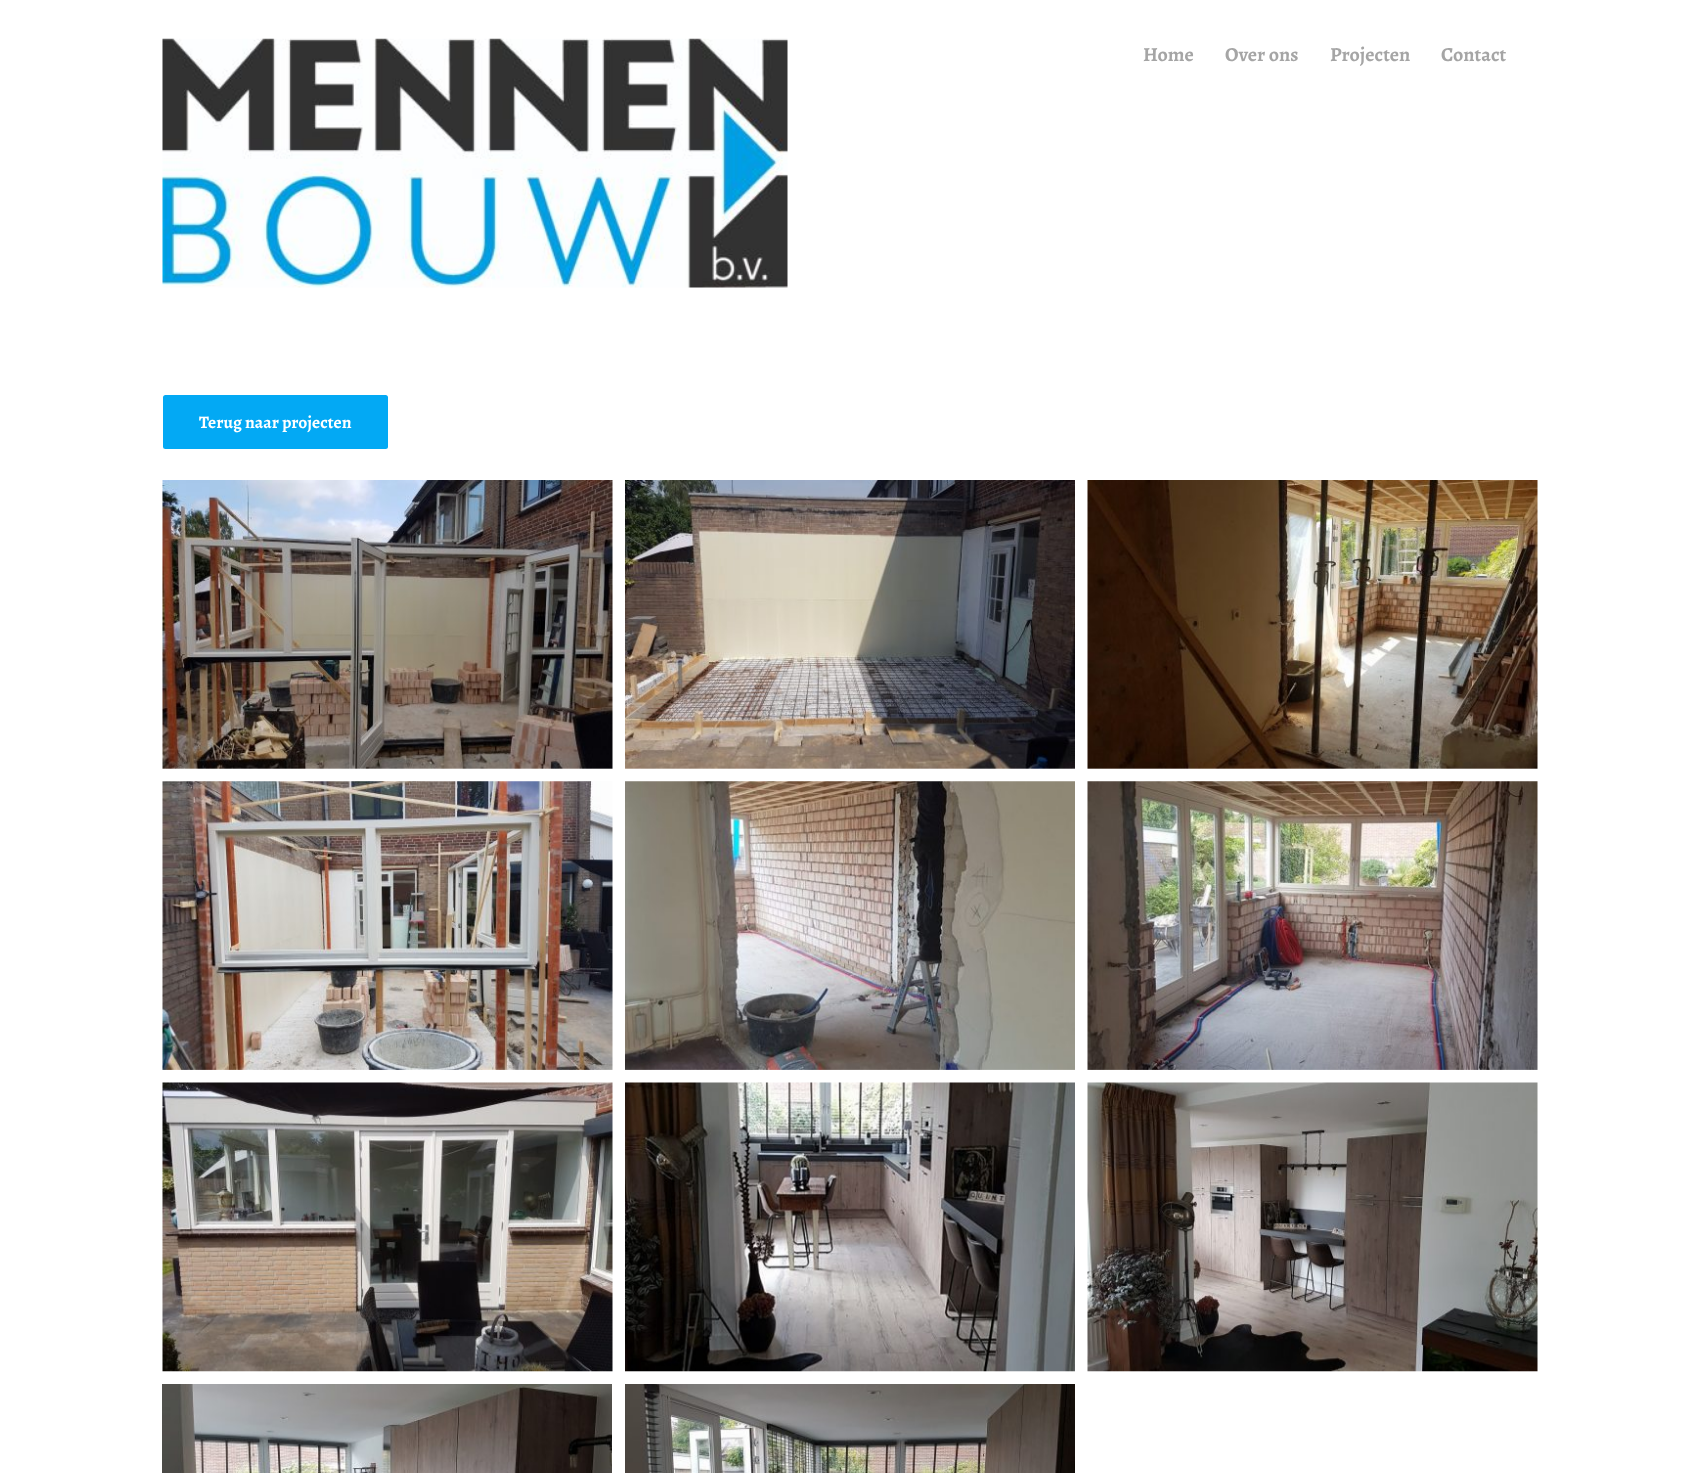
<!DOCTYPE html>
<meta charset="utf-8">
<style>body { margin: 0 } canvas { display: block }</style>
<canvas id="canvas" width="1699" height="1473"></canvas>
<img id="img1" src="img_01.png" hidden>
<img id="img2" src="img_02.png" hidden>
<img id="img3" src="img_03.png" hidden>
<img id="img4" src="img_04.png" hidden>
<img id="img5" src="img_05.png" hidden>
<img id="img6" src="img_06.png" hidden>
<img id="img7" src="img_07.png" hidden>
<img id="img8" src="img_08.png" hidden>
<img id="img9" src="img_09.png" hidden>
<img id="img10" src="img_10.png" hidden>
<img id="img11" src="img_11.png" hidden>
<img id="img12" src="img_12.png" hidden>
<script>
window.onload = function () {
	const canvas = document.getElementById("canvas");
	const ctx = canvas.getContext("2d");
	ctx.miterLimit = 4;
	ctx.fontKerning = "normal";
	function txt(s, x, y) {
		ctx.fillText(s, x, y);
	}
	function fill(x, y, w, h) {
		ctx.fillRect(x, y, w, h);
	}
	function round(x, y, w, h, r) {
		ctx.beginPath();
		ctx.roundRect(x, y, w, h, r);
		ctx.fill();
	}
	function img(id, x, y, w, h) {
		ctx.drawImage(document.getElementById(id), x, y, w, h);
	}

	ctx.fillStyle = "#FFFFFF";
	fill(0, 0, 1699, 1473);
	img("img1", 162, 38, 626, 250);
	ctx.fillStyle = "#03A9F4";
	round(163, 395, 225, 54, 2.5);
	img("img2", 162, 480, 451, 289);
	img("img3", 625, 480, 450, 289);
	img("img4", 1087, 480, 451, 289);
	img("img5", 162, 781, 451, 289);
	img("img6", 625, 781, 450, 289);
	img("img7", 1087, 781, 451, 289);
	img("img8", 162, 1082, 451, 290);
	img("img9", 625, 1082, 450, 290);
	img("img10", 1087, 1082, 451, 290);
	img("img11", 162, 1384, 450, 89);
	img("img12", 625, 1384, 450, 89);
	ctx.font = "bold 20px Alegreya";
	ctx.fillStyle = "#A5A5A5";
	txt("Home", 1143, 61);
	txt("Over ons", 1225, 61);
	txt("Projecten", 1330, 61);
	txt("Contact", 1441, 61);
	ctx.font = "bold 17.5px Alegreya";
	ctx.fillStyle = "#FFFFFF";
	txt("Terug naar projecten", 199, 428);
};
</script>
